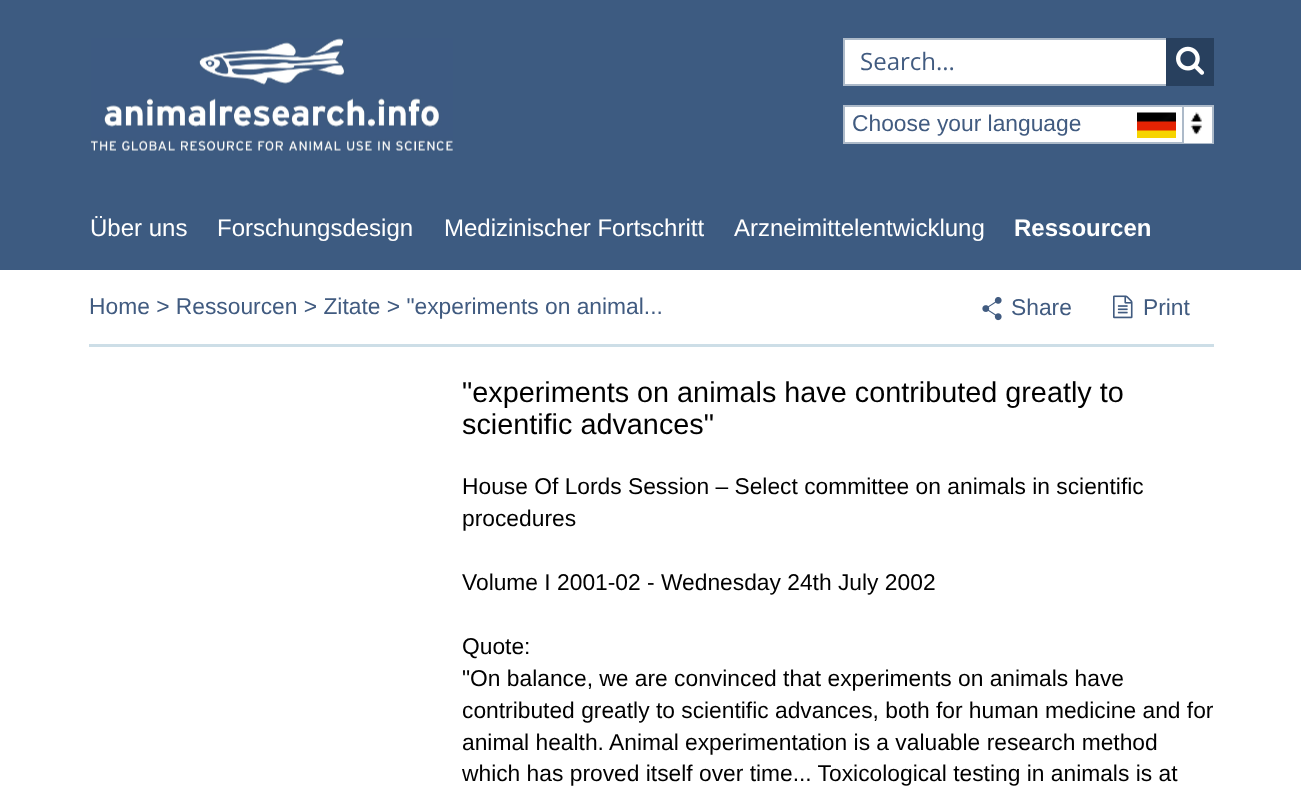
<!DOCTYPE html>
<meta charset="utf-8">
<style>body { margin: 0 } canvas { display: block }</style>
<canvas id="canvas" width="1301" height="789"></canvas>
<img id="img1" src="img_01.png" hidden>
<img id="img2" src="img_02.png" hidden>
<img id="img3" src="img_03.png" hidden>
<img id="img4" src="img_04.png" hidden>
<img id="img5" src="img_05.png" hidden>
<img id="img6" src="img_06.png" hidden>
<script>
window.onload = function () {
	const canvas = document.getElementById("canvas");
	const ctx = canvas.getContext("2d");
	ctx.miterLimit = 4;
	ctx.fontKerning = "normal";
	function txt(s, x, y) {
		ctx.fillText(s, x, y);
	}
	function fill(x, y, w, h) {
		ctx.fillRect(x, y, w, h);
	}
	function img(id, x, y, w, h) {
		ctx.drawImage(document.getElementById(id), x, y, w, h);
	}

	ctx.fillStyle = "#FFFFFF";
	fill(0, 0, 1301, 789);
	ctx.fillStyle = "#3D5B81";
	fill(0, 0, 1301, 270);
	ctx.fillStyle = "#FFFFFF";
	fill(845, 40, 321, 44);
	ctx.strokeStyle = "#ADBAC9";
	ctx.lineWidth = 2;
	ctx.strokeRect(844, 39, 331, 46);
	ctx.fillStyle = "#28405E";
	fill(1166, 38, 48, 48);
	img("img1", 1176, 46, 29, 29);
	img("img2", 91, 38, 362, 113);
	ctx.fillStyle = "#FFFFFF";
	fill(845, 107, 337, 35);
	ctx.strokeRect(844, 106, 369, 37);
	img("img3", 1137, 112, 39, 26);
	fill(1184, 107, 28, 36);
	img("img4", 1190, 112, 12, 23);
	ctx.fillStyle = "#ADBAC9";
	fill(1182, 107, 2, 36);
	img("img5", 982, 296, 20, 25);
	img("img6", 1113, 295, 20, 24);
	ctx.fillStyle = "#CDDEE7";
	fill(89, 344, 1125, 3);
	ctx.font = "24px Open Sans";
	ctx.fillStyle = "#415B80";
	txt("Search...", 860, 70);
	ctx.font = "22.8px Liberation Sans";
	txt("Choose your language", 852, 131);
	ctx.font = "24px Liberation Sans";
	ctx.fillStyle = "#FFFFFF";
	txt("Über uns", 90, 236);
	txt("Forschungsdesign", 217, 236);
	txt("Medizinischer Fortschritt", 444, 236);
	txt("Arzneimittelentwicklung", 734, 236);
	ctx.font = "bold 24px Liberation Sans";
	txt("Ressourcen", 1014, 236);
	ctx.font = "22.8px Liberation Sans";
	ctx.fillStyle = "#415B80";
	txt("Home > Ressourcen > Zitate > \"experiments on animal...", 89, 314);
	txt("Share", 1011, 315);
	txt("Print", 1143, 315);
	ctx.font = "28.8px Liberation Sans";
	ctx.fillStyle = "#000000";
	txt("\"experiments on animals have contributed greatly to", 462, 402);
	txt("scientific advances\"", 462, 434);
	ctx.font = "22.8px Liberation Sans";
	txt("House Of Lords Session – Select committee on animals in scientific", 462, 494);
	txt("procedures", 462, 526);
	txt("Volume I 2001-02 - Wednesday 24th July 2002", 462, 590);
	txt("Quote:", 462, 654);
	txt("\"On balance, we are convinced that experiments on animals have", 462, 686);
	txt("contributed greatly to scientific advances, both for human medicine and for", 462, 718);
	txt("animal health. Animal experimentation is a valuable research method", 462, 750);
	txt("which has proved itself over time... Toxicological testing in animals is at", 462, 781);
};
</script>
